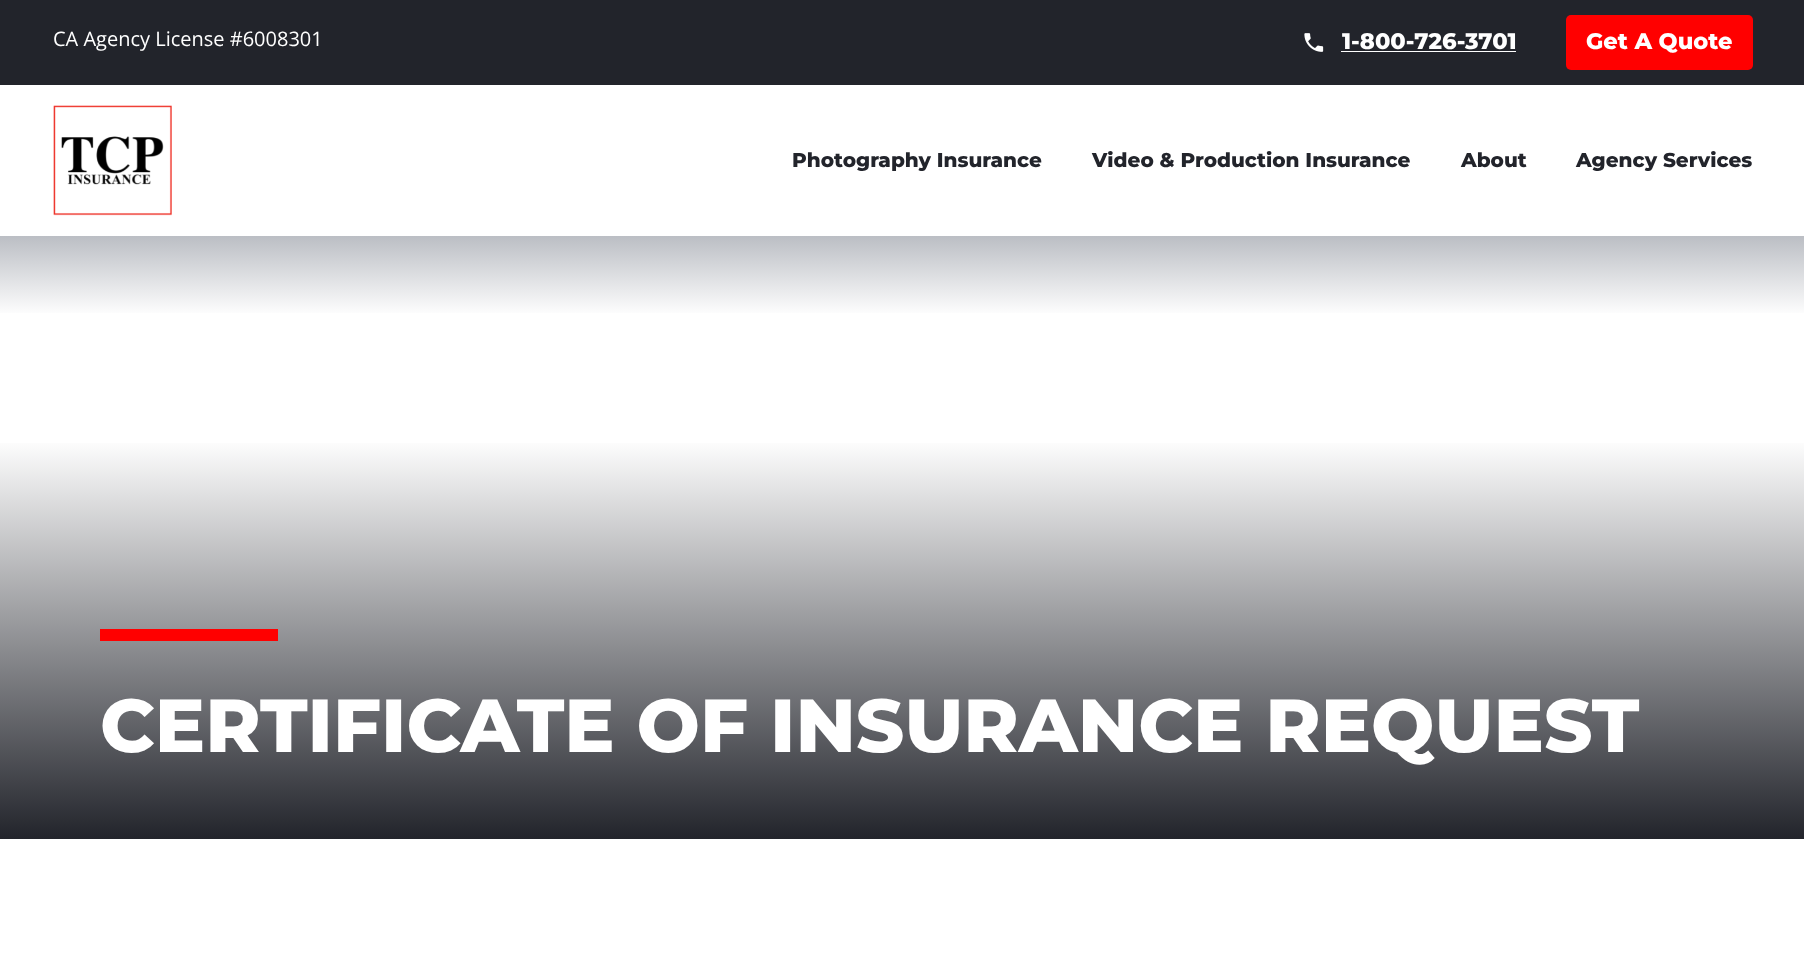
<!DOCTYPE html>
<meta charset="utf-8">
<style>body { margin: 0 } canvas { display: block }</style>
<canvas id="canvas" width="1804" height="959"></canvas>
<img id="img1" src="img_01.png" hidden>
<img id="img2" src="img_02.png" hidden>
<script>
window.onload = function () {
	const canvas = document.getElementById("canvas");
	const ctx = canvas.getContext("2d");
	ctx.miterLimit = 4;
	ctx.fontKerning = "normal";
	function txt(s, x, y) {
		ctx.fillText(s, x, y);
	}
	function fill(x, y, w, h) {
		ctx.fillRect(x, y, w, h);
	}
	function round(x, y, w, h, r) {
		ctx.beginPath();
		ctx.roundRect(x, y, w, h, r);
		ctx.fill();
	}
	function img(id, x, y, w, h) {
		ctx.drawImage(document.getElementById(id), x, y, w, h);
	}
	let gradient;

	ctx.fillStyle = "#FFFFFF";
	fill(0, 0, 1804, 959);
	ctx.fillStyle = "#22242B";
	fill(0, 0, 1804, 85);
	img("img1", 1304, 33, 20, 19);
	ctx.fillStyle = "#FFFFFF";
	fill(1341, 51, 175, 1);
	ctx.fillStyle = "#FF0000";
	round(1566, 15, 187, 55, 5);
	img("img2", 53, 105, 119, 111);
	gradient = ctx.createLinearGradient(903, 236, 903, 316);
	gradient.addColorStop(0, "#BBBEC4");
	gradient.addColorStop(1, "#FFFFFF");
	ctx.fillStyle = gradient;
	fill(0, 236, 1804, 77);
	gradient = ctx.createLinearGradient(903, 839, 903, 438);
	gradient.addColorStop(0, "#22242B");
	gradient.addColorStop(1, "#FFFFFF");
	ctx.fillStyle = gradient;
	fill(0, 443, 1804, 396);
	ctx.fillStyle = "#FF0000";
	fill(100, 629, 178, 12);
	ctx.font = "20px Open Sans";
	ctx.fillStyle = "#FFFFFF";
	txt("CA Agency License #6008301", 53, 46);
	ctx.font = "100 22.5px Montserrat";
	txt("1-800-726-3701", 1342, 49);
	txt("Get A Quote", 1586, 49);
	ctx.font = "100 20px Montserrat";
	ctx.fillStyle = "#22242B";
	txt("Photography Insurance", 792, 167);
	txt("Video & Production Insurance", 1092, 167);
	txt("About", 1461, 167);
	txt("Agency Services", 1576, 167);
	ctx.font = "100 75px Montserrat";
	ctx.fillStyle = "#FFFFFF";
	txt("CERTIFICATE OF INSURANCE REQUEST", 100, 752);
};
</script>
